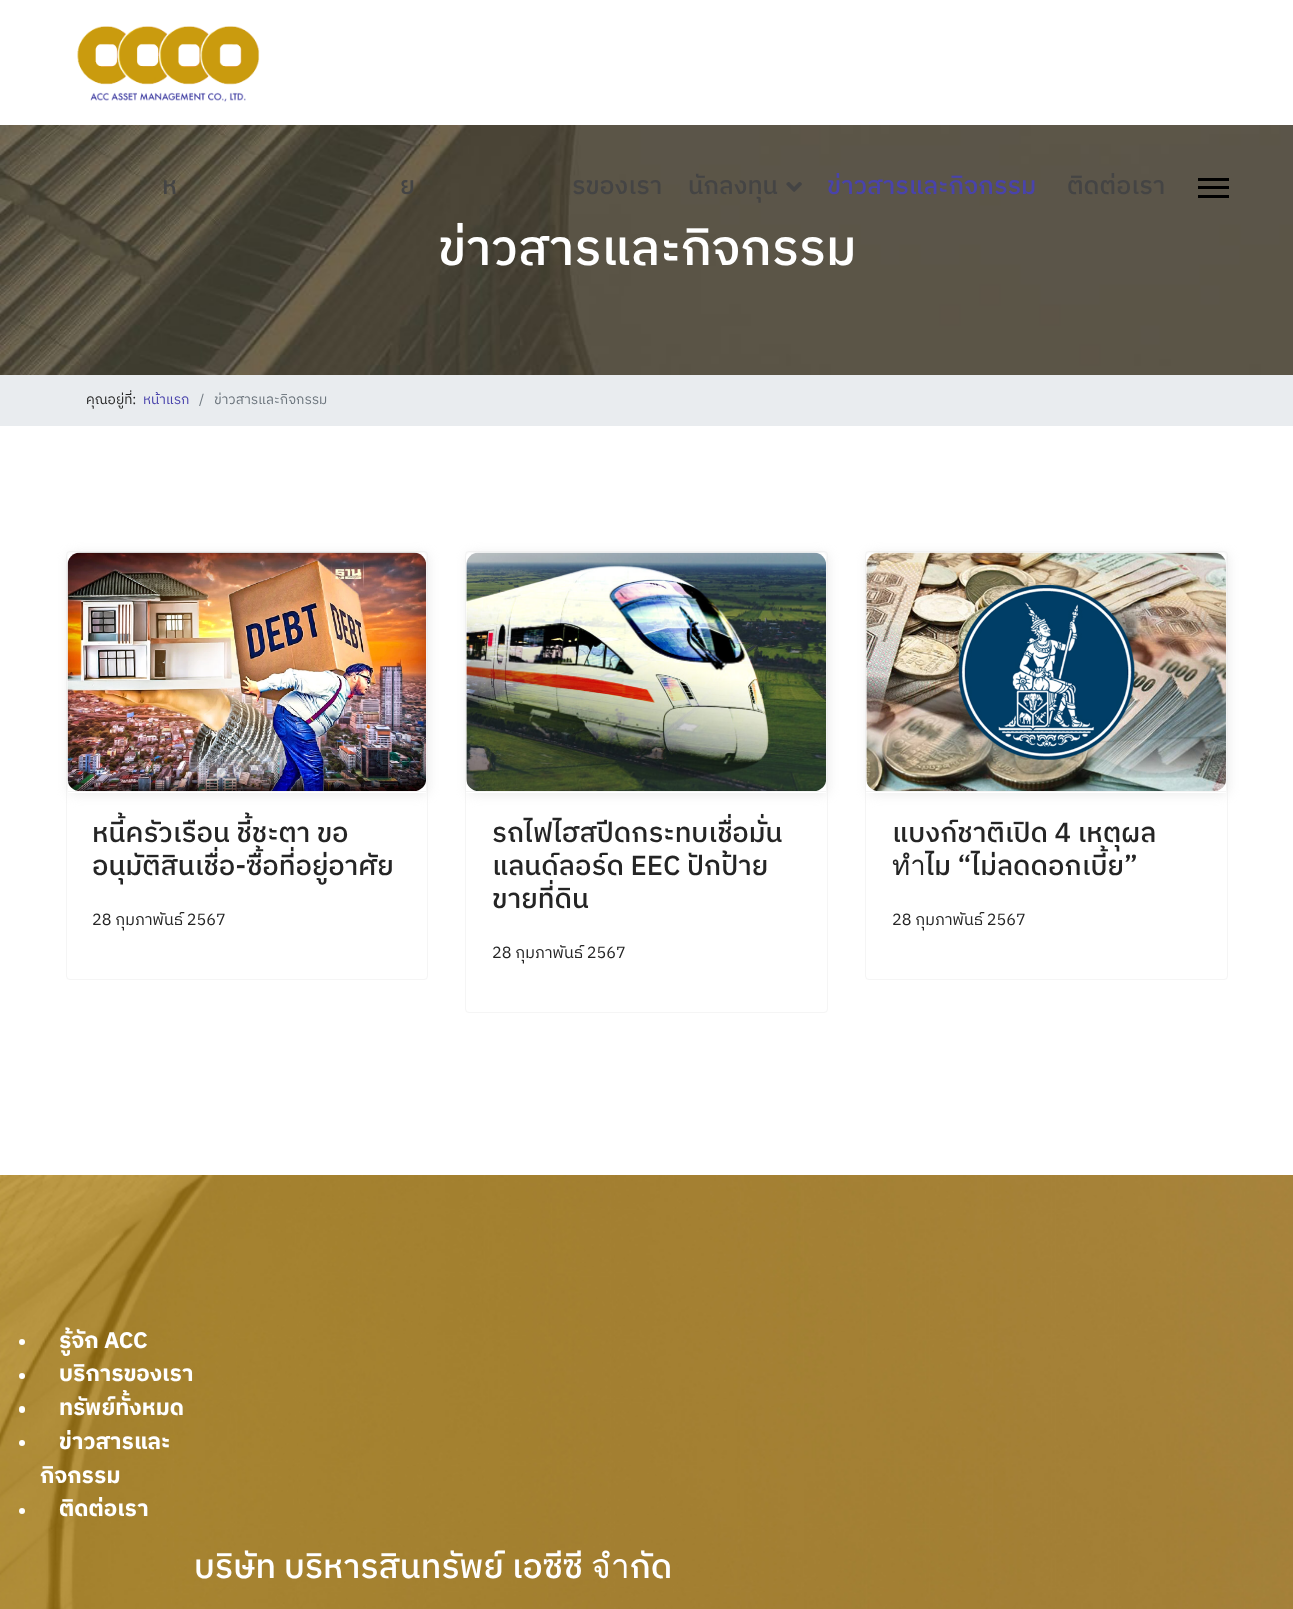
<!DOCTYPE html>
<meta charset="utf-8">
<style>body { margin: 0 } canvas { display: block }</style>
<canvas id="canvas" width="1293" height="1609"></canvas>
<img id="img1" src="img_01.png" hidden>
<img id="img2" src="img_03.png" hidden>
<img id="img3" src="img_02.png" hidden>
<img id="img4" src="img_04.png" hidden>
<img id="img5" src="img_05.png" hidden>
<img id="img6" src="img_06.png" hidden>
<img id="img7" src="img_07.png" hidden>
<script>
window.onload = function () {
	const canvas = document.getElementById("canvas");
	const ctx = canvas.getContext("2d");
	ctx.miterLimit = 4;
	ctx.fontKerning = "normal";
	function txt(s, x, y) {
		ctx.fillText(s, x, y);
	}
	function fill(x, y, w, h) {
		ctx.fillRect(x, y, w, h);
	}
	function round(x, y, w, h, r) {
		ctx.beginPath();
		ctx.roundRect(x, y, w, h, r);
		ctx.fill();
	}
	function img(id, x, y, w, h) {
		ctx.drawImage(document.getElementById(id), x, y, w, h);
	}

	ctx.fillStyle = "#FFFFFF";
	fill(0, 0, 1293, 1609);
	img("img1", 77, 26, 183, 76);
	img("img2", 0, 125, 1293, 250);
	img("img3", 786, 182, 16, 10);
	ctx.fillStyle = "#000000";
	fill(1198, 178, 31, 3);
	fill(1198, 186, 31, 3);
	fill(1198, 195, 31, 3);
	ctx.fillStyle = "#E9ECEF";
	fill(0, 375, 1293, 51);
	ctx.beginPath();
	ctx.roundRect(66.5, 551.5, 361, 428, 3.5);
	ctx.strokeStyle = "#F5F5F5";
	ctx.stroke();
	ctx.save();
	ctx.beginPath();
	ctx.moveTo(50, 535);
	ctx.lineTo(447, 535);
	ctx.lineTo(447, 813);
	ctx.lineTo(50, 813);
	ctx.closePath();
	ctx.moveTo(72, 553);
	ctx.lineTo(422, 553);
	ctx.bezierCurveTo(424, 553, 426, 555, 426, 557);
	ctx.lineTo(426, 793);
	ctx.lineTo(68, 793);
	ctx.lineTo(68, 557);
	ctx.bezierCurveTo(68, 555, 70, 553, 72, 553);
	ctx.closePath();
	ctx.clip("evenodd");
	ctx.fillStyle = "#EAEAEA";
	ctx.filter = "blur(6px)";
	ctx.beginPath();
	ctx.roundRect(69, 554, 359, 240, 4);
	ctx.fill();
	ctx.filter = "none";
	ctx.restore();
	ctx.fillStyle = "#F5F5F5";
	fill(68, 791, 358, 1);
	img("img4", 67, 552, 359, 239);
	ctx.beginPath();
	ctx.roundRect(465.5, 551.5, 362, 461, 3.5);
	ctx.stroke();
	ctx.save();
	ctx.beginPath();
	ctx.moveTo(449, 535);
	ctx.lineTo(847, 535);
	ctx.lineTo(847, 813);
	ctx.lineTo(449, 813);
	ctx.closePath();
	ctx.moveTo(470, 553);
	ctx.lineTo(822, 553);
	ctx.bezierCurveTo(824, 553, 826, 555, 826, 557);
	ctx.lineTo(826, 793);
	ctx.lineTo(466, 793);
	ctx.lineTo(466, 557);
	ctx.bezierCurveTo(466, 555, 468, 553, 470, 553);
	ctx.closePath();
	ctx.clip("evenodd");
	ctx.fillStyle = "#EAEAEA";
	ctx.filter = "blur(6px)";
	ctx.beginPath();
	ctx.roundRect(468, 554, 360, 240, 4);
	ctx.fill();
	ctx.filter = "none";
	ctx.restore();
	fill(466, 791, 360, 1);
	img("img5", 466, 552, 360, 239);
	ctx.beginPath();
	ctx.roundRect(865.5, 551.5, 362, 428, 3.5);
	ctx.stroke();
	ctx.save();
	ctx.beginPath();
	ctx.moveTo(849, 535);
	ctx.lineTo(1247, 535);
	ctx.lineTo(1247, 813);
	ctx.lineTo(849, 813);
	ctx.closePath();
	ctx.moveTo(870, 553);
	ctx.lineTo(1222, 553);
	ctx.bezierCurveTo(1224, 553, 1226, 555, 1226, 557);
	ctx.lineTo(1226, 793);
	ctx.lineTo(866, 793);
	ctx.lineTo(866, 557);
	ctx.bezierCurveTo(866, 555, 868, 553, 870, 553);
	ctx.closePath();
	ctx.clip("evenodd");
	ctx.fillStyle = "#EAEAEA";
	ctx.filter = "blur(6px)";
	ctx.beginPath();
	ctx.roundRect(868, 554, 360, 240, 4);
	ctx.fill();
	ctx.filter = "none";
	ctx.restore();
	fill(866, 791, 360, 1);
	img("img6", 866, 552, 360, 239);
	img("img7", 0, 1175, 1293, 434);
	ctx.fillStyle = "#FFFFFF";
	ctx.beginPath();
	ctx.arc(22, 1342, 3, 0, Math.PI * 2);
	ctx.fill();
	ctx.beginPath();
	ctx.arc(22, 1376, 3, 0, Math.PI * 2);
	ctx.fill();
	round(19, 1406, 6, 7, 3);
	ctx.beginPath();
	ctx.arc(22, 1443, 3, 0, Math.PI * 2);
	ctx.fill();
	ctx.beginPath();
	ctx.arc(22, 1511, 3, 0, Math.PI * 2);
	ctx.fill();
	ctx.font = "500 25px IBM Plex Sans Thai";
	ctx.fillStyle = "#444444";
	txt("ห", 162, 194);
	txt("ย", 400, 194);
	txt("รของเรา", 572, 194);
	txt("นักลงทุน", 688, 194);
	ctx.fillStyle = "#4943AC";
	txt("ข่าวสารและกิจกรรม", 827, 194);
	ctx.fillStyle = "#444444";
	txt("ติดต่อเรา", 1067, 194);
	ctx.font = "500 50px IBM Plex Sans Thai";
	ctx.fillStyle = "#FFFFFF";
	txt("ข่าวสารและกิจกรรม", 438, 265);
	ctx.font = "13.75px IBM Plex Sans Thai";
	ctx.fillStyle = "#252525";
	txt("คุณอยู่ที่:", 86, 404);
	ctx.fillStyle = "#4943AC";
	txt("หน้าแรก", 143, 404);
	ctx.fillStyle = "#6C757D";
	txt("/", 199, 404);
	txt("ข่าวสารและกิจกรรม", 214, 404);
	ctx.font = "500 27.5px IBM Plex Sans Thai";
	ctx.fillStyle = "#252525";
	txt("หนี้ครัวเรือน ชี้ชะตา ขอ", 92, 842);
	txt("อนุมัติสินเชื่อ-ซื้อที่อยู่อาศัย", 92, 875);
	ctx.font = "16.25px IBM Plex Sans Thai";
	txt("28 กุมภาพันธ์ 2567", 92, 925);
	ctx.font = "500 27.5px IBM Plex Sans Thai";
	txt("รถไฟไฮสปีดกระทบเชื่อมั่น", 492, 842);
	txt("แลนด์ลอร์ด EEC ปักป้าย", 492, 875);
	txt("ขายที่ดิน", 492, 908);
	ctx.font = "16.25px IBM Plex Sans Thai";
	txt("28 กุมภาพันธ์ 2567", 492, 958);
	ctx.font = "500 27.5px IBM Plex Sans Thai";
	txt("แบงก์ชาติเปิด 4 เหตุผล", 892, 842);
	txt("ทำไม “ไม่ลดดอกเบี้ย”", 892, 875);
	ctx.font = "16.25px IBM Plex Sans Thai";
	txt("28 กุมภาพันธ์ 2567", 892, 925);
	ctx.font = "bold 22.5px IBM Plex Sans Thai";
	ctx.fillStyle = "#FFFFFF";
	txt("รู้จัก ACC", 59, 1348);
	txt("บริการของเรา", 59, 1381);
	txt("ทรัพย์ทั้งหมด", 59, 1415);
	txt("ข่าวสารและ", 59, 1449);
	txt("กิจกรรม", 40, 1483);
	txt("ติดต่อเรา", 59, 1516);
	ctx.font = "500 33.75px IBM Plex Sans Thai";
	txt("บริษัท บริหารสินทรัพย์ เอซีซี จำกัด", 194, 1578);
};
</script>
